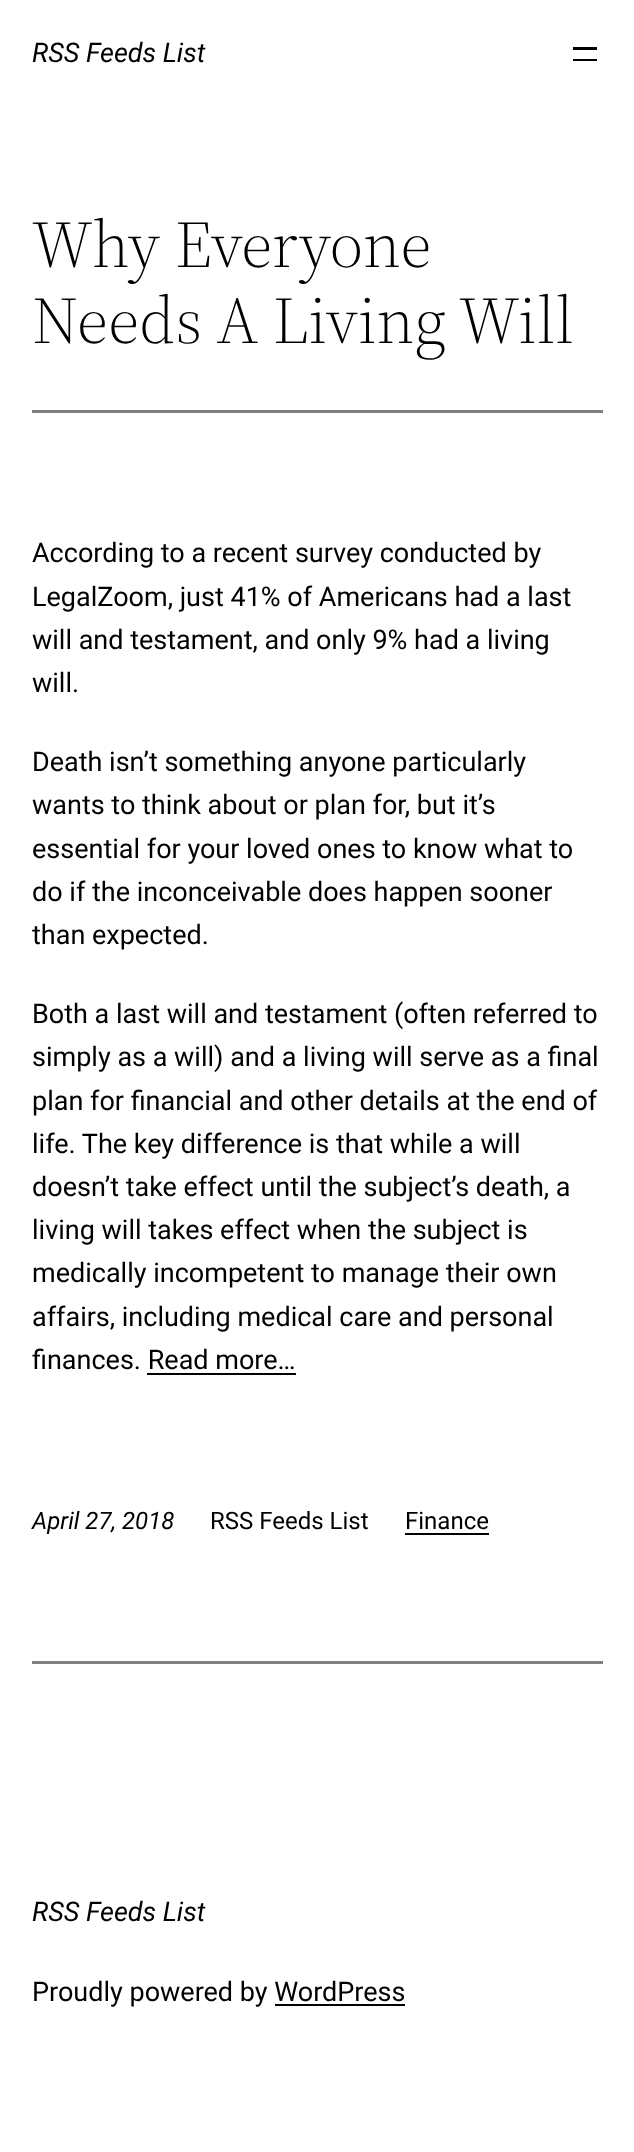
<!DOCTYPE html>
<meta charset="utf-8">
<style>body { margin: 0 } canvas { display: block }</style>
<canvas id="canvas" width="634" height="2152"></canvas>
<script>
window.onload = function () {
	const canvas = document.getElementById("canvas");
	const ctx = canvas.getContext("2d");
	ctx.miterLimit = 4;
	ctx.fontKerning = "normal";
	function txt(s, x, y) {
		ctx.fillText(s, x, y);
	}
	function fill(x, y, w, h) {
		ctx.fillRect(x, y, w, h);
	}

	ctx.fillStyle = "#FFFFFF";
	fill(0, 0, 634, 2152);
	ctx.fillStyle = "#000000";
	fill(573, 47, 24, 3);
	fill(573, 59, 24, 2);
	ctx.fillStyle = "#808080";
	fill(32, 410, 571, 3);
	ctx.fillStyle = "#000000";
	fill(147, 1373, 149, 2);
	fill(405, 1533, 84, 2);
	ctx.fillStyle = "#808080";
	fill(32, 1661, 571, 3);
	ctx.fillStyle = "#000000";
	fill(275, 2004, 130, 2);
	ctx.font = "italic 27px Roboto";
	txt("RSS Feeds List", 32, 62);
	ctx.font = "300 66px 'Source Serif 4'";
	txt("Why Everyone", 32, 267);
	txt("Needs A Living Will", 32, 343);
	ctx.font = "27px Roboto";
	txt("According to a recent survey conducted by", 32, 562);
	txt("LegalZoom, just 41% of Americans had a last", 32, 606);
	txt("will and testament, and only 9% had a living", 32, 649);
	txt("will.", 32, 692);
	txt("Death isn’t something anyone particularly", 32, 771);
	txt("wants to think about or plan for, but it’s", 32, 814);
	txt("essential for your loved ones to know what to", 32, 858);
	txt("do if the inconceivable does happen sooner", 32, 901);
	txt("than expected.", 32, 944);
	txt("Both a last will and testament (often referred to", 32, 1023);
	txt("simply as a will) and a living will serve as a final", 32, 1066);
	txt("plan for financial and other details at the end of", 32, 1110);
	txt("life. The key difference is that while a will", 32, 1153);
	txt("doesn’t take effect until the subject’s death, a", 32, 1196);
	txt("living will takes effect when the subject is", 32, 1239);
	txt("medically incompetent to manage their own", 32, 1282);
	txt("affairs, including medical care and personal", 32, 1326);
	txt("finances. Read more…", 32, 1369);
	ctx.font = "italic 24px Roboto";
	txt("April 27, 2018", 32, 1529);
	ctx.font = "24px Roboto";
	txt("RSS Feeds List", 210, 1529);
	txt("Finance", 405, 1529);
	ctx.font = "italic 27px Roboto";
	txt("RSS Feeds List", 32, 1921);
	ctx.font = "27px Roboto";
	txt("Proudly powered by WordPress", 32, 2001);
};
</script>
